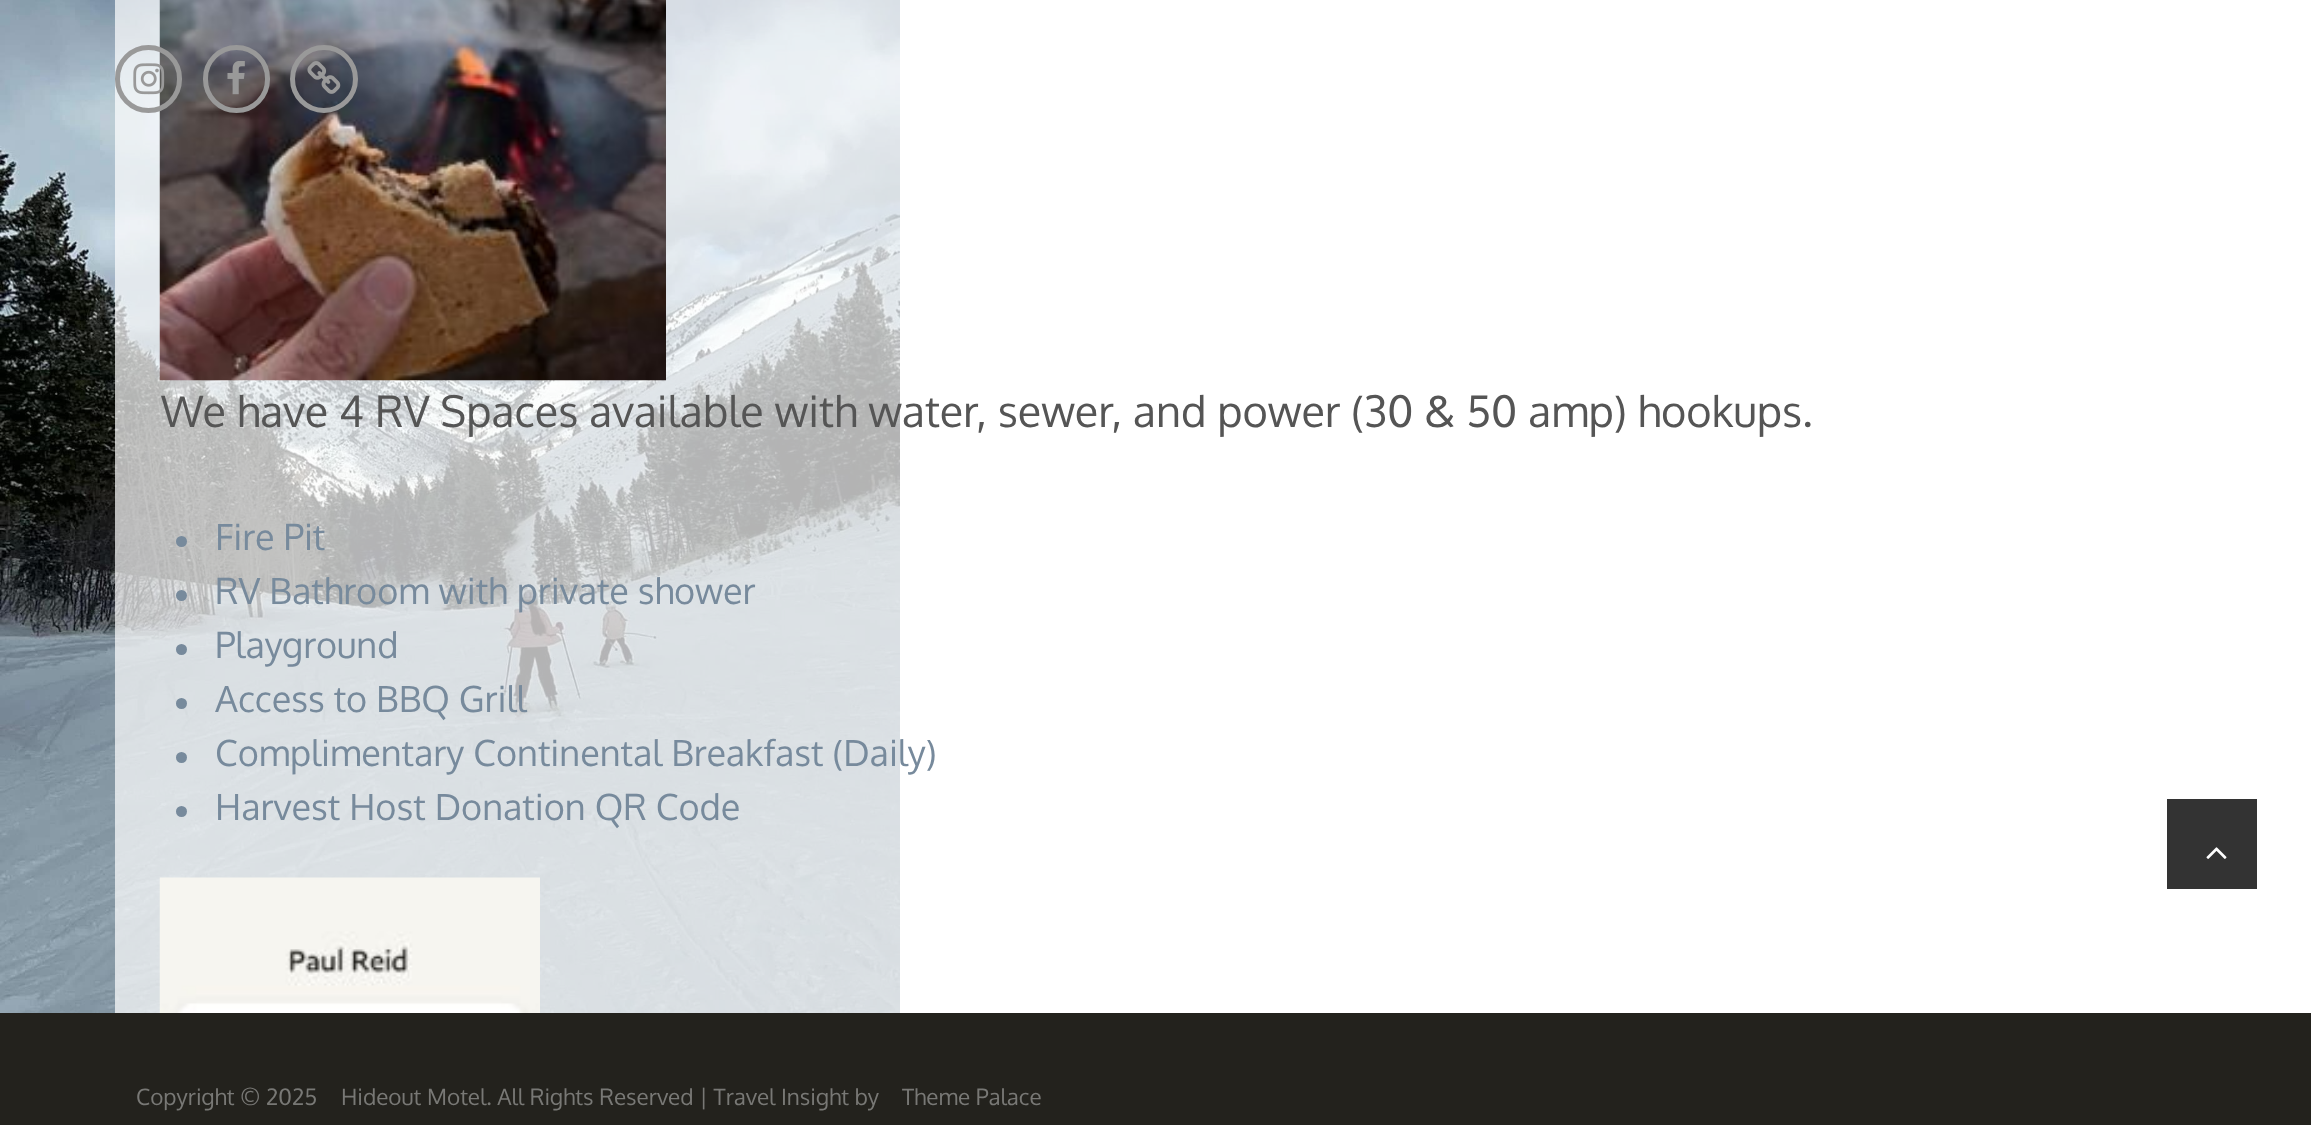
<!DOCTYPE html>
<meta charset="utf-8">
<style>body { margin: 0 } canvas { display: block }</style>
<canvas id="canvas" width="2311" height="1125"></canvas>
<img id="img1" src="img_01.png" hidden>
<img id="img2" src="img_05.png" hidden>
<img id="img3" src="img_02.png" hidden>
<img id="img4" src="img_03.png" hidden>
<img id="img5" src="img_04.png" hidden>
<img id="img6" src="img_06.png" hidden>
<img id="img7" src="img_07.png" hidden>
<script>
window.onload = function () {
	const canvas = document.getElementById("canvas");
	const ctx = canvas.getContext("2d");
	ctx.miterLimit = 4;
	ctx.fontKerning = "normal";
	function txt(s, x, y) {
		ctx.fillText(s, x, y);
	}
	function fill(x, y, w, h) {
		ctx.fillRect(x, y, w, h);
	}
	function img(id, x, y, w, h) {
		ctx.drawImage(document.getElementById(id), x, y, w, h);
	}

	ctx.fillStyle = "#FFFFFF";
	fill(0, 0, 2311, 1125);
	img("img1", 0, 0, 900, 1013);
	ctx.fillStyle = "rgba(255, 255, 255, 0.7)";
	fill(115, 0, 785, 1013);
	img("img2", 159, 0, 507, 381);
	ctx.beginPath();
	ctx.roundRect(117.5, 47.5, 62, 63, 31);
	ctx.strokeStyle = "#999999";
	ctx.lineWidth = 5;
	ctx.stroke();
	img("img3", 133, 63, 32, 32);
	ctx.beginPath();
	ctx.roundRect(205.5, 47.5, 62, 63, 31);
	ctx.stroke();
	img("img4", 227, 61, 18, 34);
	ctx.beginPath();
	ctx.arc(324, 79, 31.5, 0, Math.PI * 2);
	ctx.stroke();
	img("img5", 307, 61, 34, 33);
	ctx.fillStyle = "#778A9C";
	ctx.beginPath();
	ctx.arc(181.5, 541.5, 5.5, 0, Math.PI * 2);
	ctx.fill();
	ctx.beginPath();
	ctx.arc(181.5, 595.5, 5.5, 0, Math.PI * 2);
	ctx.fill();
	ctx.beginPath();
	ctx.arc(181.5, 649.5, 5.5, 0, Math.PI * 2);
	ctx.fill();
	ctx.beginPath();
	ctx.arc(181.5, 703.5, 5.5, 0, Math.PI * 2);
	ctx.fill();
	ctx.beginPath();
	ctx.arc(181.5, 757.5, 5.5, 0, Math.PI * 2);
	ctx.fill();
	ctx.beginPath();
	ctx.arc(181.5, 811.5, 5.5, 0, Math.PI * 2);
	ctx.fill();
	img("img6", 159, 877, 381, 136);
	ctx.fillStyle = "#333333";
	fill(2167, 799, 90, 90);
	img("img7", 2206, 847, 21, 12);
	ctx.fillStyle = "#23221D";
	fill(0, 1013, 2311, 112);
	ctx.font = "43.2px Oxygen";
	ctx.fillStyle = "#555555";
	txt("We have 4 RV Spaces available with water, sewer, and power (30 & 50 amp) hookups.", 161, 427);
	ctx.font = "36px Oxygen";
	ctx.fillStyle = "#778A9C";
	txt("Fire Pit", 215, 550);
	txt("RV Bathroom with private shower", 215, 604);
	txt("Playground", 215, 658);
	txt("Access to BBQ Grill", 215, 712);
	txt("Complimentary Continental Breakfast (Daily)", 215, 766);
	txt("Harvest Host Donation QR Code", 215, 820);
	ctx.font = "22.5px Oxygen";
	ctx.fillStyle = "#787875";
	txt("Copyright © 2025", 136, 1105);
	txt("Hideout Motel. All Rights Reserved | Travel Insight by", 341, 1105);
	txt("Theme Palace", 902, 1105);
};
</script>
